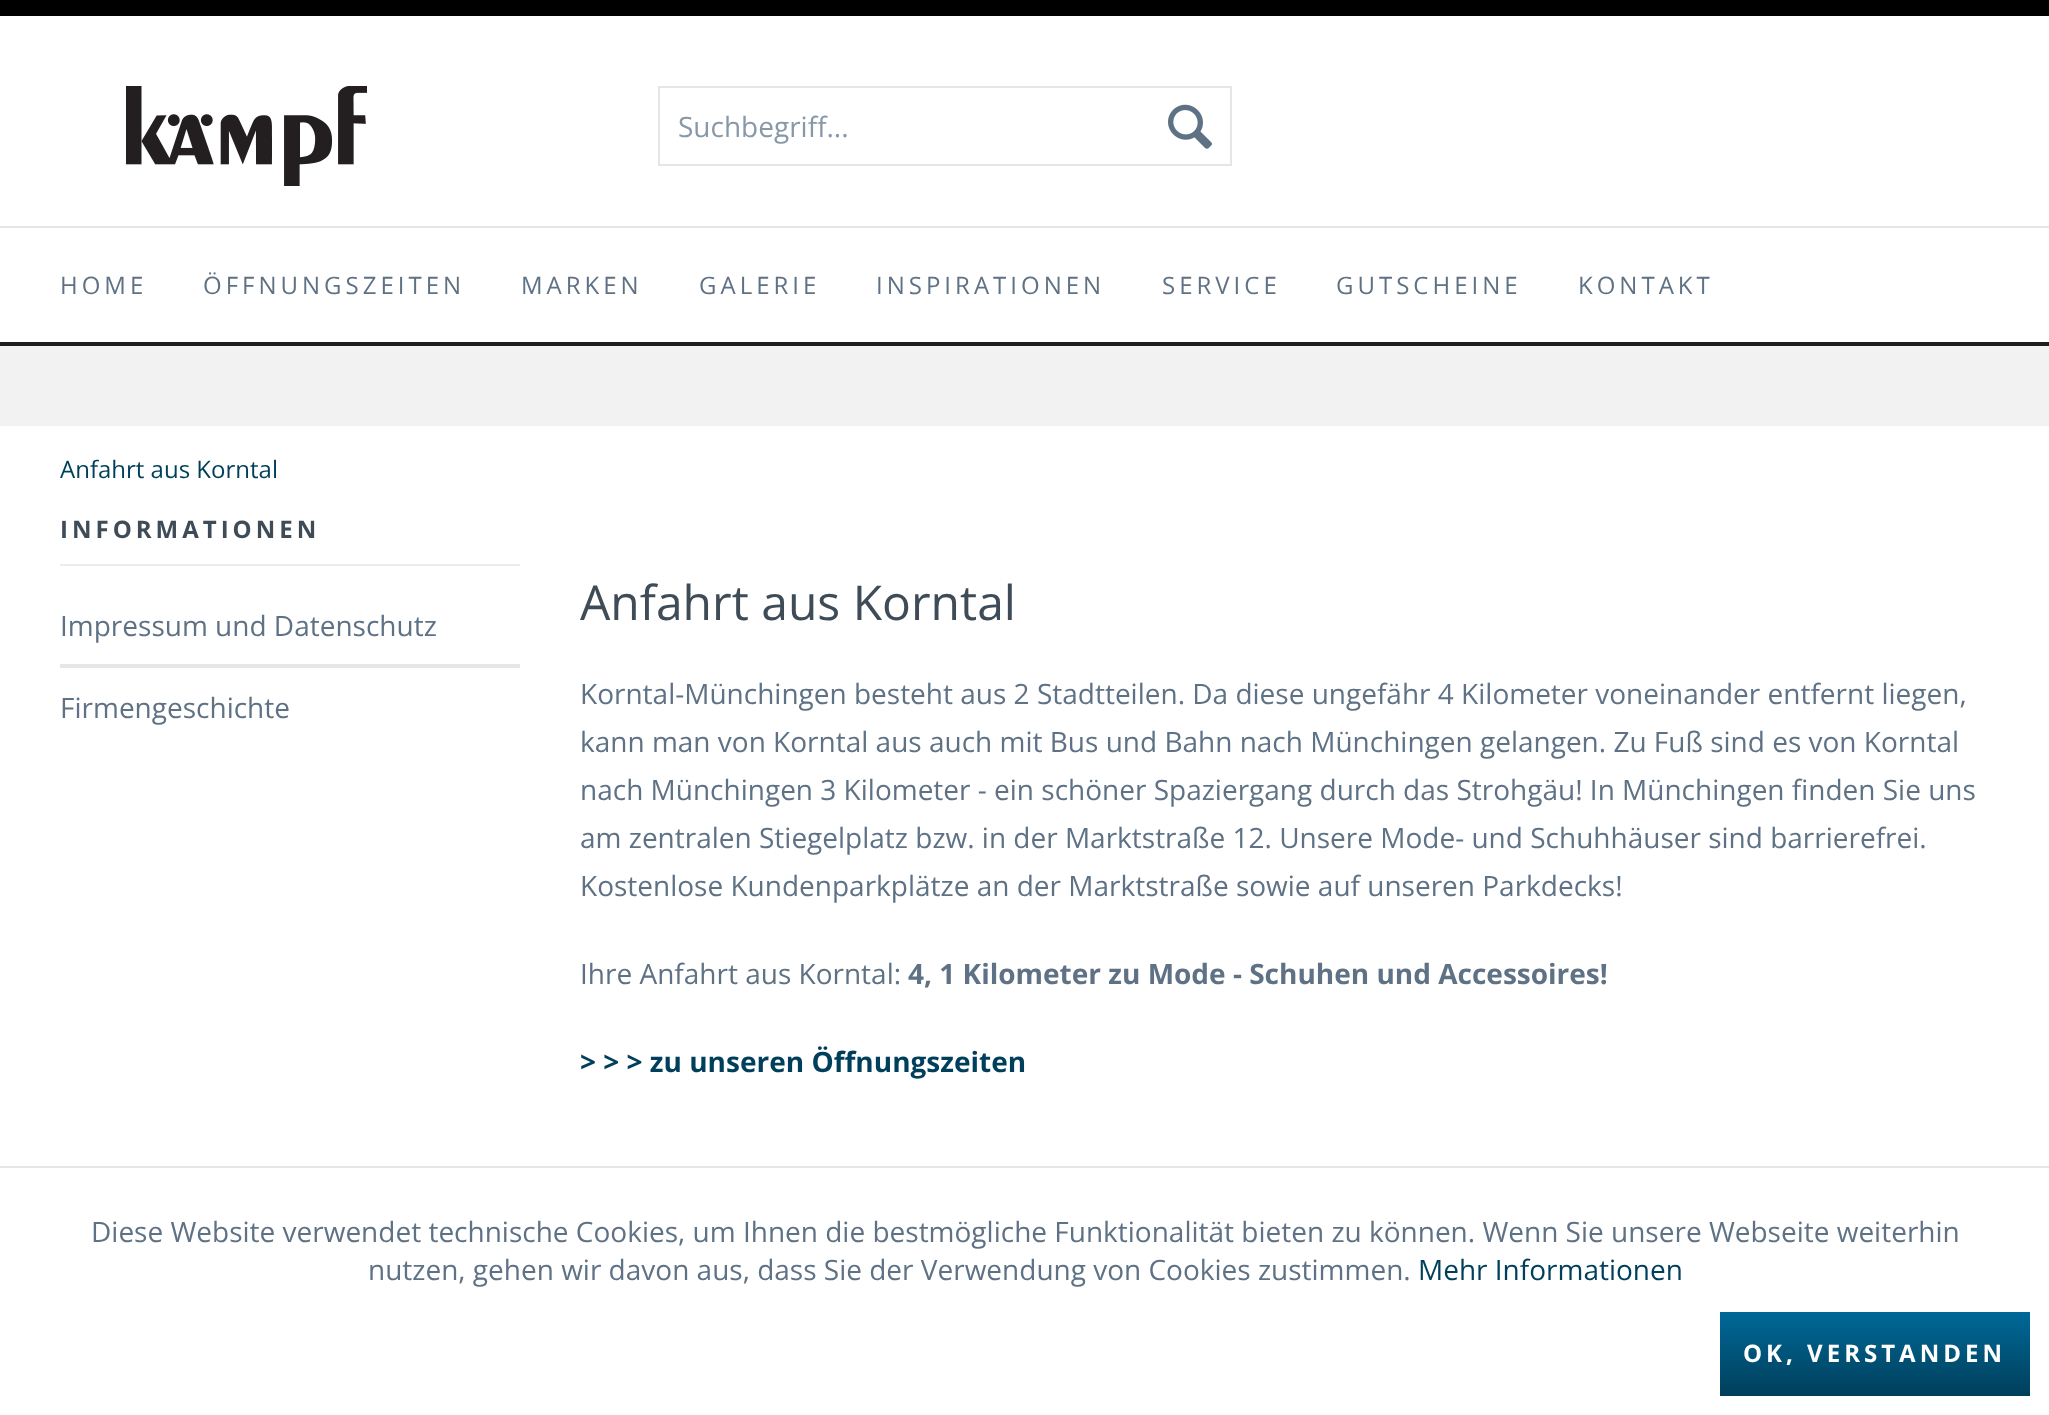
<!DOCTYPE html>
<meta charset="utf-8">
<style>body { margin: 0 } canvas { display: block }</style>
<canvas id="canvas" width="2049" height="1415"></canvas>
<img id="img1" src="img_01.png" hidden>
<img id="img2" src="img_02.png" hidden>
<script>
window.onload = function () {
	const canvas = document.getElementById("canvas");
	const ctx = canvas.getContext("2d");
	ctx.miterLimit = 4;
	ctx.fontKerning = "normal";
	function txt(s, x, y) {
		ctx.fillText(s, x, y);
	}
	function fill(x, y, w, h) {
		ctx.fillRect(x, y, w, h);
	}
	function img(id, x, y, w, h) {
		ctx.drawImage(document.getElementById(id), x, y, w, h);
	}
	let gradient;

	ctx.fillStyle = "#F2F2F2";
	fill(0, 0, 2049, 1415);
	ctx.fillStyle = "#FFFFFF";
	fill(0, 16, 2049, 210);
	ctx.fillStyle = "#000000";
	fill(0, 0, 2049, 16);
	img("img1", 126, 86, 241, 100);
	ctx.strokeStyle = "#E6E6E6";
	ctx.lineWidth = 2;
	ctx.strokeRect(659, 87, 572, 78);
	img("img2", 1168, 104, 44, 45);
	ctx.fillStyle = "#FFFFFF";
	fill(0, 228, 2049, 114);
	ctx.fillStyle = "#E6E6E6";
	fill(0, 226, 2049, 2);
	ctx.fillStyle = "#1E1E1E";
	fill(0, 342, 2049, 4);
	ctx.fillStyle = "#FFFFFF";
	fill(0, 426, 2049, 989);
	ctx.fillStyle = "#ECEDEE";
	fill(60, 564, 460, 2);
	ctx.fillStyle = "#E6E6E6";
	fill(60, 664, 460, 4);
	fill(0, 1166, 2049, 2);
	gradient = ctx.createLinearGradient(1875, 1312, 1875, 1396);
	gradient.addColorStop(0, "#006998");
	gradient.addColorStop(1, "#003F5B");
	ctx.fillStyle = gradient;
	fill(1720, 1312, 310, 84);
	ctx.font = "28px Open Sans";
	ctx.fillStyle = "#8798A9";
	txt("Suchbegriff...", 678, 137);
	ctx.letterSpacing = "4px";
	ctx.font = "24px Open Sans";
	ctx.fillStyle = "#5F7285";
	txt("HOME", 60, 294);
	txt("ÖFFNUNGSZEITEN", 203, 294);
	txt("MARKEN", 521, 294);
	txt("GALERIE", 699, 294);
	txt("INSPIRATIONEN", 876, 294);
	txt("SERVICE", 1162, 294);
	txt("GUTSCHEINE", 1336, 294);
	txt("KONTAKT", 1578, 294);
	ctx.letterSpacing = "0px";
	ctx.fillStyle = "#003F5B";
	txt("Anfahrt aus Korntal", 60, 478);
	ctx.letterSpacing = "4px";
	ctx.font = "bold 24px Open Sans";
	ctx.fillStyle = "#3F4C58";
	txt("INFORMATIONEN", 60, 538);
	ctx.letterSpacing = "0px";
	ctx.font = "28px Open Sans";
	ctx.fillStyle = "#5F7285";
	txt("Impressum und Datenschutz", 60, 636);
	txt("Firmengeschichte", 60, 718);
	ctx.font = "48px Open Sans";
	ctx.fillStyle = "#3F4C58";
	txt("Anfahrt aus Korntal", 580, 620);
	ctx.font = "28px Open Sans";
	ctx.fillStyle = "#5F7285";
	txt("Korntal-Münchingen besteht aus 2 Stadtteilen. Da diese ungefähr 4 Kilometer voneinander entfernt liegen,", 580, 704);
	txt("kann man von Korntal aus auch mit Bus und Bahn nach Münchingen gelangen. Zu Fuß sind es von Korntal", 580, 752);
	txt("nach Münchingen 3 Kilometer - ein schöner Spaziergang durch das Strohgäu! In Münchingen finden Sie uns", 580, 800);
	txt("am zentralen Stiegelplatz bzw. in der Marktstraße 12. Unsere Mode- und Schuhhäuser sind barrierefrei.", 580, 848);
	txt("Kostenlose Kundenparkplätze an der Marktstraße sowie auf unseren Parkdecks!", 580, 896);
	txt("Ihre Anfahrt aus Korntal:", 580, 984);
	ctx.font = "bold 28px Open Sans";
	txt("4, 1 Kilometer zu Mode - Schuhen und Accessoires!", 908, 984);
	ctx.fillStyle = "#003F5B";
	txt("> > > zu unseren Öffnungszeiten", 580, 1072);
	ctx.font = "28px Open Sans";
	ctx.fillStyle = "#5F7285";
	txt("Diese Website verwendet technische Cookies, um Ihnen die bestmögliche Funktionalität bieten zu können. Wenn Sie unsere Webseite weiterhin", 91, 1242);
	txt("nutzen, gehen wir davon aus, dass Sie der Verwendung von Cookies zustimmen.", 368, 1280);
	ctx.fillStyle = "#003F5B";
	txt("Mehr Informationen", 1418, 1280);
	ctx.letterSpacing = "4px";
	ctx.font = "bold 24px Open Sans";
	ctx.fillStyle = "#FFFFFF";
	txt("OK, VERSTANDEN", 1743, 1362);
};
</script>
